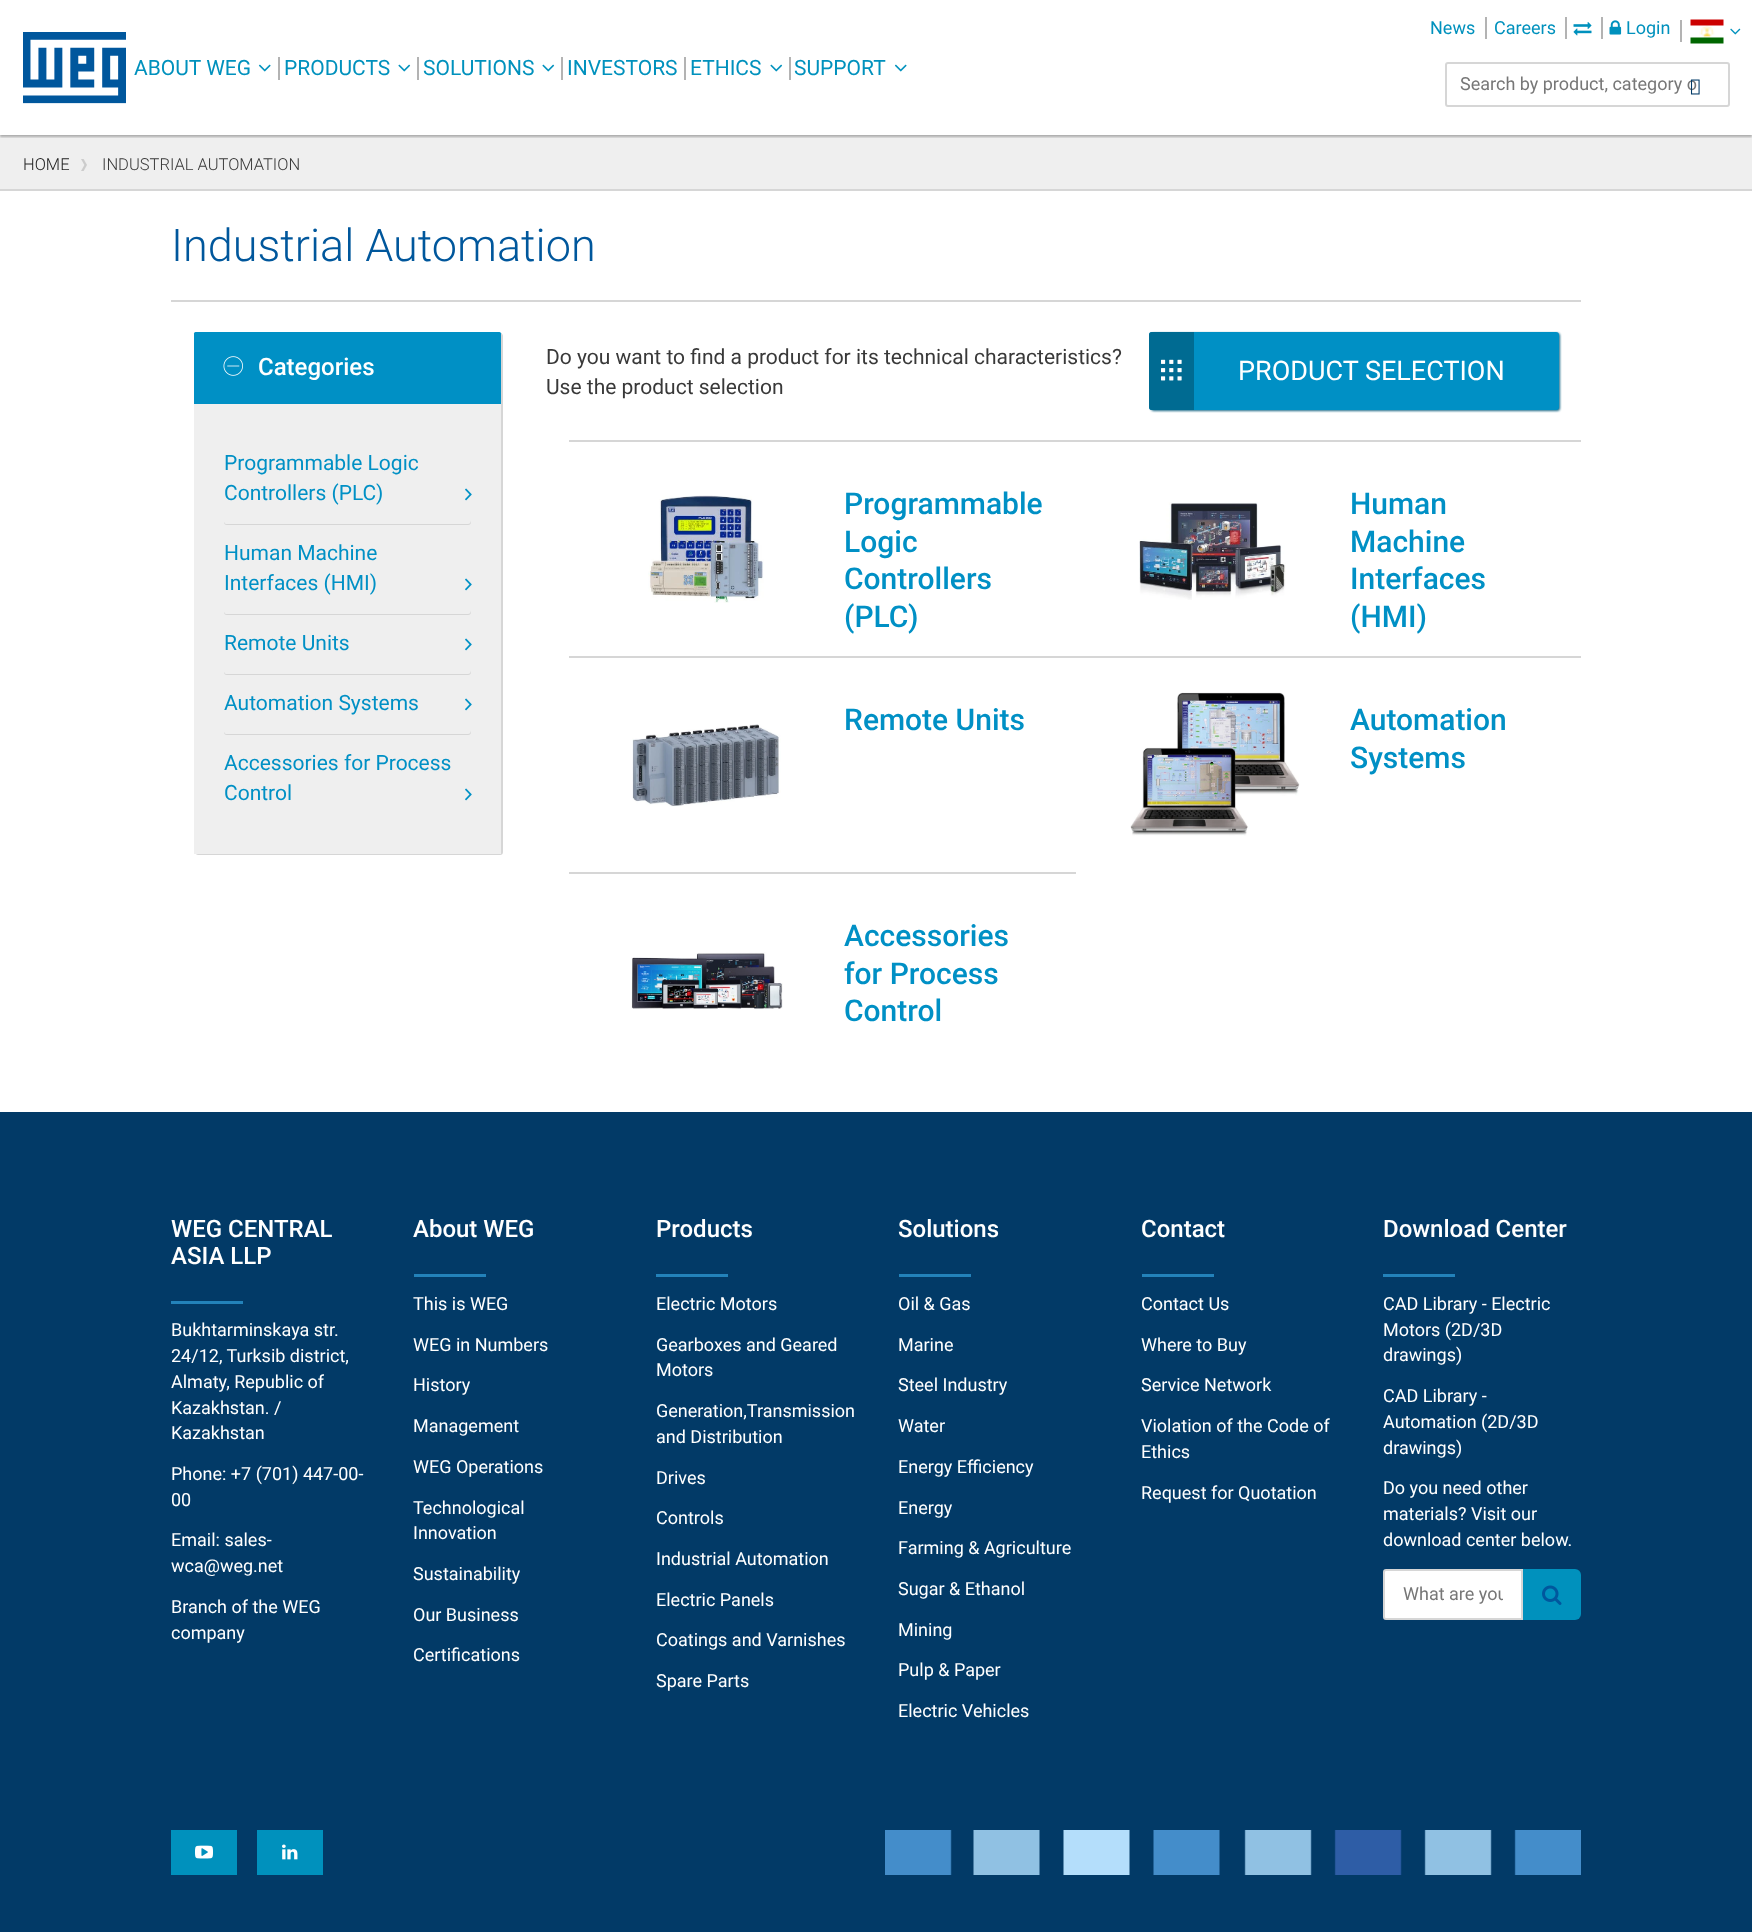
<!DOCTYPE html>
<meta charset="utf-8">
<style>body { margin: 0 } canvas { display: block }</style>
<canvas id="canvas" width="1752" height="1932"></canvas>
<img id="img1" src="img_01.png" hidden>
<img id="img2" src="img_02.png" hidden>
<img id="img3" src="img_03.png" hidden>
<img id="img4" src="img_04.png" hidden>
<img id="img5" src="img_05.png" hidden>
<img id="img6" src="img_06.png" hidden>
<img id="img7" src="img_07.png" hidden>
<img id="img8" src="img_09.png" hidden>
<img id="img9" src="img_10.png" hidden>
<img id="img10" src="img_11.png" hidden>
<img id="img11" src="img_12.png" hidden>
<img id="img12" src="img_13.png" hidden>
<img id="img13" src="img_14.png" hidden>
<img id="img14" src="img_15.png" hidden>
<img id="img15" src="img_16.png" hidden>
<img id="img16" src="img_17.png" hidden>
<img id="img17" src="img_18.png" hidden>
<img id="img18" src="img_19.png" hidden>
<img id="img19" src="img_20.png" hidden>
<img id="img20" src="img_21.png" hidden>
<img id="img21" src="img_08.png" hidden>
<script>
window.onload = function () {
	const canvas = document.getElementById("canvas");
	const ctx = canvas.getContext("2d");
	ctx.miterLimit = 4;
	ctx.fontKerning = "normal";
	function txt(s, x, y) {
		ctx.fillText(s, x, y);
	}
	function fill(x, y, w, h) {
		ctx.fillRect(x, y, w, h);
	}
	function img(id, x, y, w, h) {
		ctx.drawImage(document.getElementById(id), x, y, w, h);
	}

	ctx.fillStyle = "#FFFFFF";
	fill(0, 0, 1752, 1932);
	ctx.fillStyle = "#EFEFEF";
	fill(0, 135, 1752, 54);
	ctx.save();
	ctx.beginPath();
	ctx.rect(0, 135, 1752, 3);
	ctx.clip();
	ctx.fillStyle = "rgba(0, 0, 0, 0.15)";
	ctx.filter = "blur(1px)";
	ctx.beginPath();
	ctx.rect(0, 2, 1752, 135);
	ctx.fill();
	ctx.filter = "none";
	ctx.filter = "blur(1px)";
	ctx.beginPath();
	ctx.rect(0, 2, 1752, 135);
	ctx.fill();
	ctx.filter = "none";
	ctx.restore();
	img("img1", 23, 32, 103, 72);
	img("img2", 258, 64, 13, 8);
	ctx.fillStyle = "#B3B3B3";
	fill(278, 57, 2, 23);
	img("img3", 398, 64, 13, 8);
	fill(417, 57, 2, 23);
	img("img3", 542, 64, 13, 8);
	fill(561, 57, 2, 23);
	fill(684, 57, 2, 23);
	img("img3", 770, 64, 13, 8);
	fill(789, 57, 2, 23);
	img("img2", 894, 64, 13, 8);
	fill(1485, 17, 2, 22);
	fill(1565, 17, 2, 22);
	img("img4", 1573, 22, 19, 14);
	fill(1601, 17, 2, 22);
	img("img5", 1609, 20, 13, 15);
	fill(1680, 20, 2, 22);
	img("img6", 1690, 19, 34, 25);
	img("img7", 1730, 28, 11, 7);
	ctx.beginPath();
	ctx.roundRect(1446, 63, 283, 43, 2);
	ctx.strokeStyle = "#D6D6D6";
	ctx.lineWidth = 2;
	ctx.stroke();
	ctx.fillStyle = "#D6D6D6";
	fill(0, 189, 1752, 2);
	img("img8", 81, 159, 6, 12);
	fill(171, 300, 1410, 2);
	ctx.beginPath();
	ctx.moveTo(195, 853);
	ctx.bezierCurveTo(196, 854, 197, 855, 198, 855);
	ctx.lineTo(500, 855);
	ctx.bezierCurveTo(502, 855, 503, 854, 503, 852);
	ctx.lineTo(503, 336);
	ctx.bezierCurveTo(503, 335, 502, 333, 501, 333);
	ctx.lineTo(501, 334);
	ctx.lineTo(501, 850);
	ctx.bezierCurveTo(501, 852, 500, 854, 498, 854);
	ctx.closePath();
	ctx.fill();
	ctx.fillStyle = "#0090C5";
	ctx.beginPath();
	ctx.roundRect(194, 332, 307, 72, [1.5, 1.5, 0, 0]);
	ctx.fill();
	img("img9", 223, 356, 20, 20);
	ctx.fillStyle = "#EFEFEF";
	fill(194, 404, 307, 450);
	ctx.fillStyle = "#D6D6D6";
	ctx.beginPath();
	ctx.moveTo(224, 522);
	ctx.bezierCurveTo(224, 524, 225, 525, 227, 525);
	ctx.lineTo(468, 525);
	ctx.bezierCurveTo(470, 525, 471, 524, 471, 522);
	ctx.lineTo(471, 520);
	ctx.bezierCurveTo(471, 522, 470, 524, 468, 524);
	ctx.lineTo(226, 524);
	ctx.bezierCurveTo(225, 524, 225, 523, 224, 522);
	ctx.closePath();
	ctx.fill();
	img("img10", 465, 488, 7, 13);
	ctx.beginPath();
	ctx.moveTo(224, 612);
	ctx.bezierCurveTo(224, 614, 225, 615, 227, 615);
	ctx.lineTo(468, 615);
	ctx.bezierCurveTo(470, 615, 471, 614, 471, 612);
	ctx.lineTo(471, 610);
	ctx.bezierCurveTo(471, 612, 470, 614, 468, 614);
	ctx.lineTo(226, 614);
	ctx.bezierCurveTo(225, 614, 225, 613, 224, 612);
	ctx.closePath();
	ctx.fill();
	img("img10", 465, 578, 7, 13);
	ctx.beginPath();
	ctx.moveTo(224, 672);
	ctx.bezierCurveTo(224, 674, 225, 675, 227, 675);
	ctx.lineTo(468, 675);
	ctx.bezierCurveTo(470, 675, 471, 674, 471, 672);
	ctx.lineTo(471, 670);
	ctx.bezierCurveTo(471, 672, 470, 674, 468, 674);
	ctx.lineTo(226, 674);
	ctx.bezierCurveTo(225, 674, 225, 673, 224, 672);
	ctx.closePath();
	ctx.fill();
	img("img10", 465, 638, 7, 13);
	ctx.beginPath();
	ctx.moveTo(224, 732);
	ctx.bezierCurveTo(224, 734, 225, 735, 227, 735);
	ctx.lineTo(468, 735);
	ctx.bezierCurveTo(470, 735, 471, 734, 471, 732);
	ctx.lineTo(471, 730);
	ctx.bezierCurveTo(471, 732, 470, 734, 468, 734);
	ctx.lineTo(226, 734);
	ctx.bezierCurveTo(225, 734, 225, 733, 224, 732);
	ctx.closePath();
	ctx.fill();
	img("img10", 465, 698, 7, 13);
	img("img10", 465, 788, 7, 13);
	ctx.fillStyle = "rgba(0, 88, 121, 0.9)";
	ctx.filter = "blur(1px)";
	ctx.beginPath();
	ctx.roundRect(1151, 333, 409, 78, 3);
	ctx.fill();
	ctx.filter = "none";
	ctx.fillStyle = "#0090C5";
	ctx.beginPath();
	ctx.roundRect(1150, 333, 408, 76, 2);
	ctx.fill();
	ctx.strokeStyle = "#0090C5";
	ctx.stroke();
	ctx.fillStyle = "#006B92";
	ctx.beginPath();
	ctx.roundRect(1150, 333, 43, 76, [2, 0, 0, 2]);
	ctx.fill();
	ctx.strokeStyle = "#006B92";
	ctx.stroke();
	img("img11", 1161, 359, 21, 22);
	ctx.fillStyle = "#D6D6D6";
	fill(569, 440, 1012, 2);
	img("img12", 648, 495, 116, 108);
	img("img13", 1139, 502, 147, 98);
	fill(569, 656, 1012, 2);
	img("img14", 632, 724, 149, 83);
	img("img15", 1130, 692, 170, 144);
	fill(569, 872, 507, 2);
	img("img16", 631, 952, 152, 57);
	ctx.fillStyle = "#023A67";
	fill(0, 1112, 1752, 820);
	ctx.fillStyle = "#2382BA";
	fill(171, 1301, 72, 3);
	fill(414, 1274, 72, 3);
	fill(656, 1274, 72, 3);
	fill(899, 1274, 72, 3);
	fill(1142, 1274, 72, 3);
	fill(1383, 1274, 72, 3);
	ctx.fillStyle = "#FFFFFF";
	ctx.beginPath();
	ctx.roundRect(1384, 1570, 138, 49, [2, 0, 0, 2]);
	ctx.fill();
	ctx.strokeStyle = "#D6D6D6";
	ctx.stroke();
	ctx.fillStyle = "#0091BD";
	ctx.beginPath();
	ctx.roundRect(1523, 1569, 58, 51, [0, 6, 6, 0]);
	ctx.fill();
	img("img17", 1542, 1585, 20, 20);
	fill(171, 1830, 66, 45);
	img("img18", 195, 1845, 18, 14);
	fill(257, 1830, 66, 45);
	img("img19", 282, 1844, 16, 16);
	img("img20", 885, 1830, 696, 45);
	ctx.font = "21px Roboto";
	txt("ABOUT WEG", 134, 75);
	txt("PRODUCTS", 284, 75);
	txt("SOLUTIONS", 423, 75);
	txt("INVESTORS", 567, 75);
	txt("ETHICS", 690, 75);
	txt("SUPPORT", 794, 75);
	ctx.font = "18px Roboto";
	txt("News", 1430, 34);
	txt("Careers", 1494, 34);
	txt("Login", 1626, 34);
	ctx.fillStyle = "#777777";
	txt("Search by product, category o", 1460, 90);
	img("img21", 1690, 79, 10, 16);
	ctx.font = "300 16.5px Roboto";
	ctx.fillStyle = "#222222";
	txt("HOME", 23, 170);
	ctx.fillStyle = "#393939";
	txt("INDUSTRIAL AUTOMATION", 102, 170);
	ctx.font = "300 45px Roboto";
	ctx.fillStyle = "#00579C";
	txt("Industrial Automation", 171, 261);
	ctx.font = "500 24px Roboto";
	ctx.fillStyle = "#FFFFFF";
	txt("Categories", 258, 375);
	ctx.font = "21px Roboto";
	ctx.fillStyle = "#0090C5";
	txt("Programmable Logic", 224, 470);
	txt("Controllers (PLC)", 224, 500);
	txt("Human Machine", 224, 560);
	txt("Interfaces (HMI)", 224, 590);
	txt("Remote Units", 224, 650);
	txt("Automation Systems", 224, 710);
	txt("Accessories for Process", 224, 770);
	txt("Control", 224, 800);
	ctx.fillStyle = "#393939";
	txt("Do you want to find a product for its technical characteristics?", 546, 364);
	txt("Use the product selection", 546, 394);
	ctx.font = "27px Roboto";
	ctx.fillStyle = "#FFFFFF";
	txt("PRODUCT SELECTION", 1238, 380);
	ctx.font = "500 30px Roboto";
	ctx.fillStyle = "#0090C5";
	txt("Programmable", 844, 514);
	txt("Logic", 844, 552);
	txt("Controllers", 844, 589);
	txt("(PLC)", 844, 627);
	txt("Human", 1350, 514);
	txt("Machine", 1350, 552);
	txt("Interfaces", 1350, 589);
	txt("(HMI)", 1350, 627);
	txt("Remote Units", 844, 730);
	txt("Automation", 1350, 730);
	txt("Systems", 1350, 768);
	txt("Accessories", 844, 946);
	txt("for Process", 844, 984);
	txt("Control", 844, 1021);
	ctx.font = "500 24px Roboto";
	ctx.fillStyle = "#FFFFFF";
	txt("WEG CENTRAL", 171, 1237);
	txt("ASIA LLP", 171, 1264);
	ctx.font = "18px Roboto";
	txt("Bukhtarminskaya str.", 171, 1336);
	txt("24/12, Turksib district,", 171, 1362);
	txt("Almaty, Republic of", 171, 1388);
	txt("Kazakhstan. /", 171, 1414);
	txt("Kazakhstan", 171, 1439);
	txt("Phone: +7 (701) 447-00-", 171, 1480);
	txt("00", 171, 1506);
	txt("Email: sales-", 171, 1546);
	txt("wca@weg.net", 171, 1572);
	txt("Branch of the WEG", 171, 1613);
	txt("company", 171, 1639);
	ctx.font = "500 24px Roboto";
	txt("About WEG", 413, 1237);
	ctx.font = "18px Roboto";
	txt("This is WEG", 413, 1310);
	txt("WEG in Numbers", 413, 1351);
	txt("History", 413, 1391);
	txt("Management", 413, 1432);
	txt("WEG Operations", 413, 1473);
	txt("Technological", 413, 1514);
	txt("Innovation", 413, 1539);
	txt("Sustainability", 413, 1580);
	txt("Our Business", 413, 1621);
	txt("Certifications", 413, 1661);
	ctx.font = "500 24px Roboto";
	txt("Products", 656, 1237);
	ctx.font = "18px Roboto";
	txt("Electric Motors", 656, 1310);
	txt("Gearboxes and Geared", 656, 1351);
	txt("Motors", 656, 1376);
	txt("Generation,Transmission", 656, 1417);
	txt("and Distribution", 656, 1443);
	txt("Drives", 656, 1484);
	txt("Controls", 656, 1524);
	txt("Industrial Automation", 656, 1565);
	txt("Electric Panels", 656, 1606);
	txt("Coatings and Varnishes", 656, 1646);
	txt("Spare Parts", 656, 1687);
	ctx.font = "500 24px Roboto";
	txt("Solutions", 898, 1237);
	ctx.font = "18px Roboto";
	txt("Oil & Gas", 898, 1310);
	txt("Marine", 898, 1351);
	txt("Steel Industry", 898, 1391);
	txt("Water", 898, 1432);
	txt("Energy Efficiency", 898, 1473);
	txt("Energy", 898, 1514);
	txt("Farming & Agriculture", 898, 1554);
	txt("Sugar & Ethanol", 898, 1595);
	txt("Mining", 898, 1636);
	txt("Pulp & Paper", 898, 1676);
	txt("Electric Vehicles", 898, 1717);
	ctx.font = "500 24px Roboto";
	txt("Contact", 1141, 1237);
	ctx.font = "18px Roboto";
	txt("Contact Us", 1141, 1310);
	txt("Where to Buy", 1141, 1351);
	txt("Service Network", 1141, 1391);
	txt("Violation of the Code of", 1141, 1432);
	txt("Ethics", 1141, 1458);
	txt("Request for Quotation", 1141, 1499);
	ctx.font = "500 24px Roboto";
	txt("Download Center", 1383, 1237);
	ctx.font = "18px Roboto";
	txt("CAD Library - Electric", 1383, 1310);
	txt("Motors (2D/3D", 1383, 1336);
	txt("drawings)", 1383, 1361);
	txt("CAD Library -", 1383, 1402);
	txt("Automation (2D/3D", 1383, 1428);
	txt("drawings)", 1383, 1454);
	txt("Do you need other", 1383, 1494);
	txt("materials? Visit our", 1383, 1520);
	txt("download center below.", 1383, 1546);
	ctx.save();
	ctx.beginPath();
	ctx.rect(1403, 1584, 100, 21);
	ctx.clip();
	ctx.fillStyle = "#777777";
	txt("What are you", 1403, 1600);
	ctx.restore();
};
</script>
